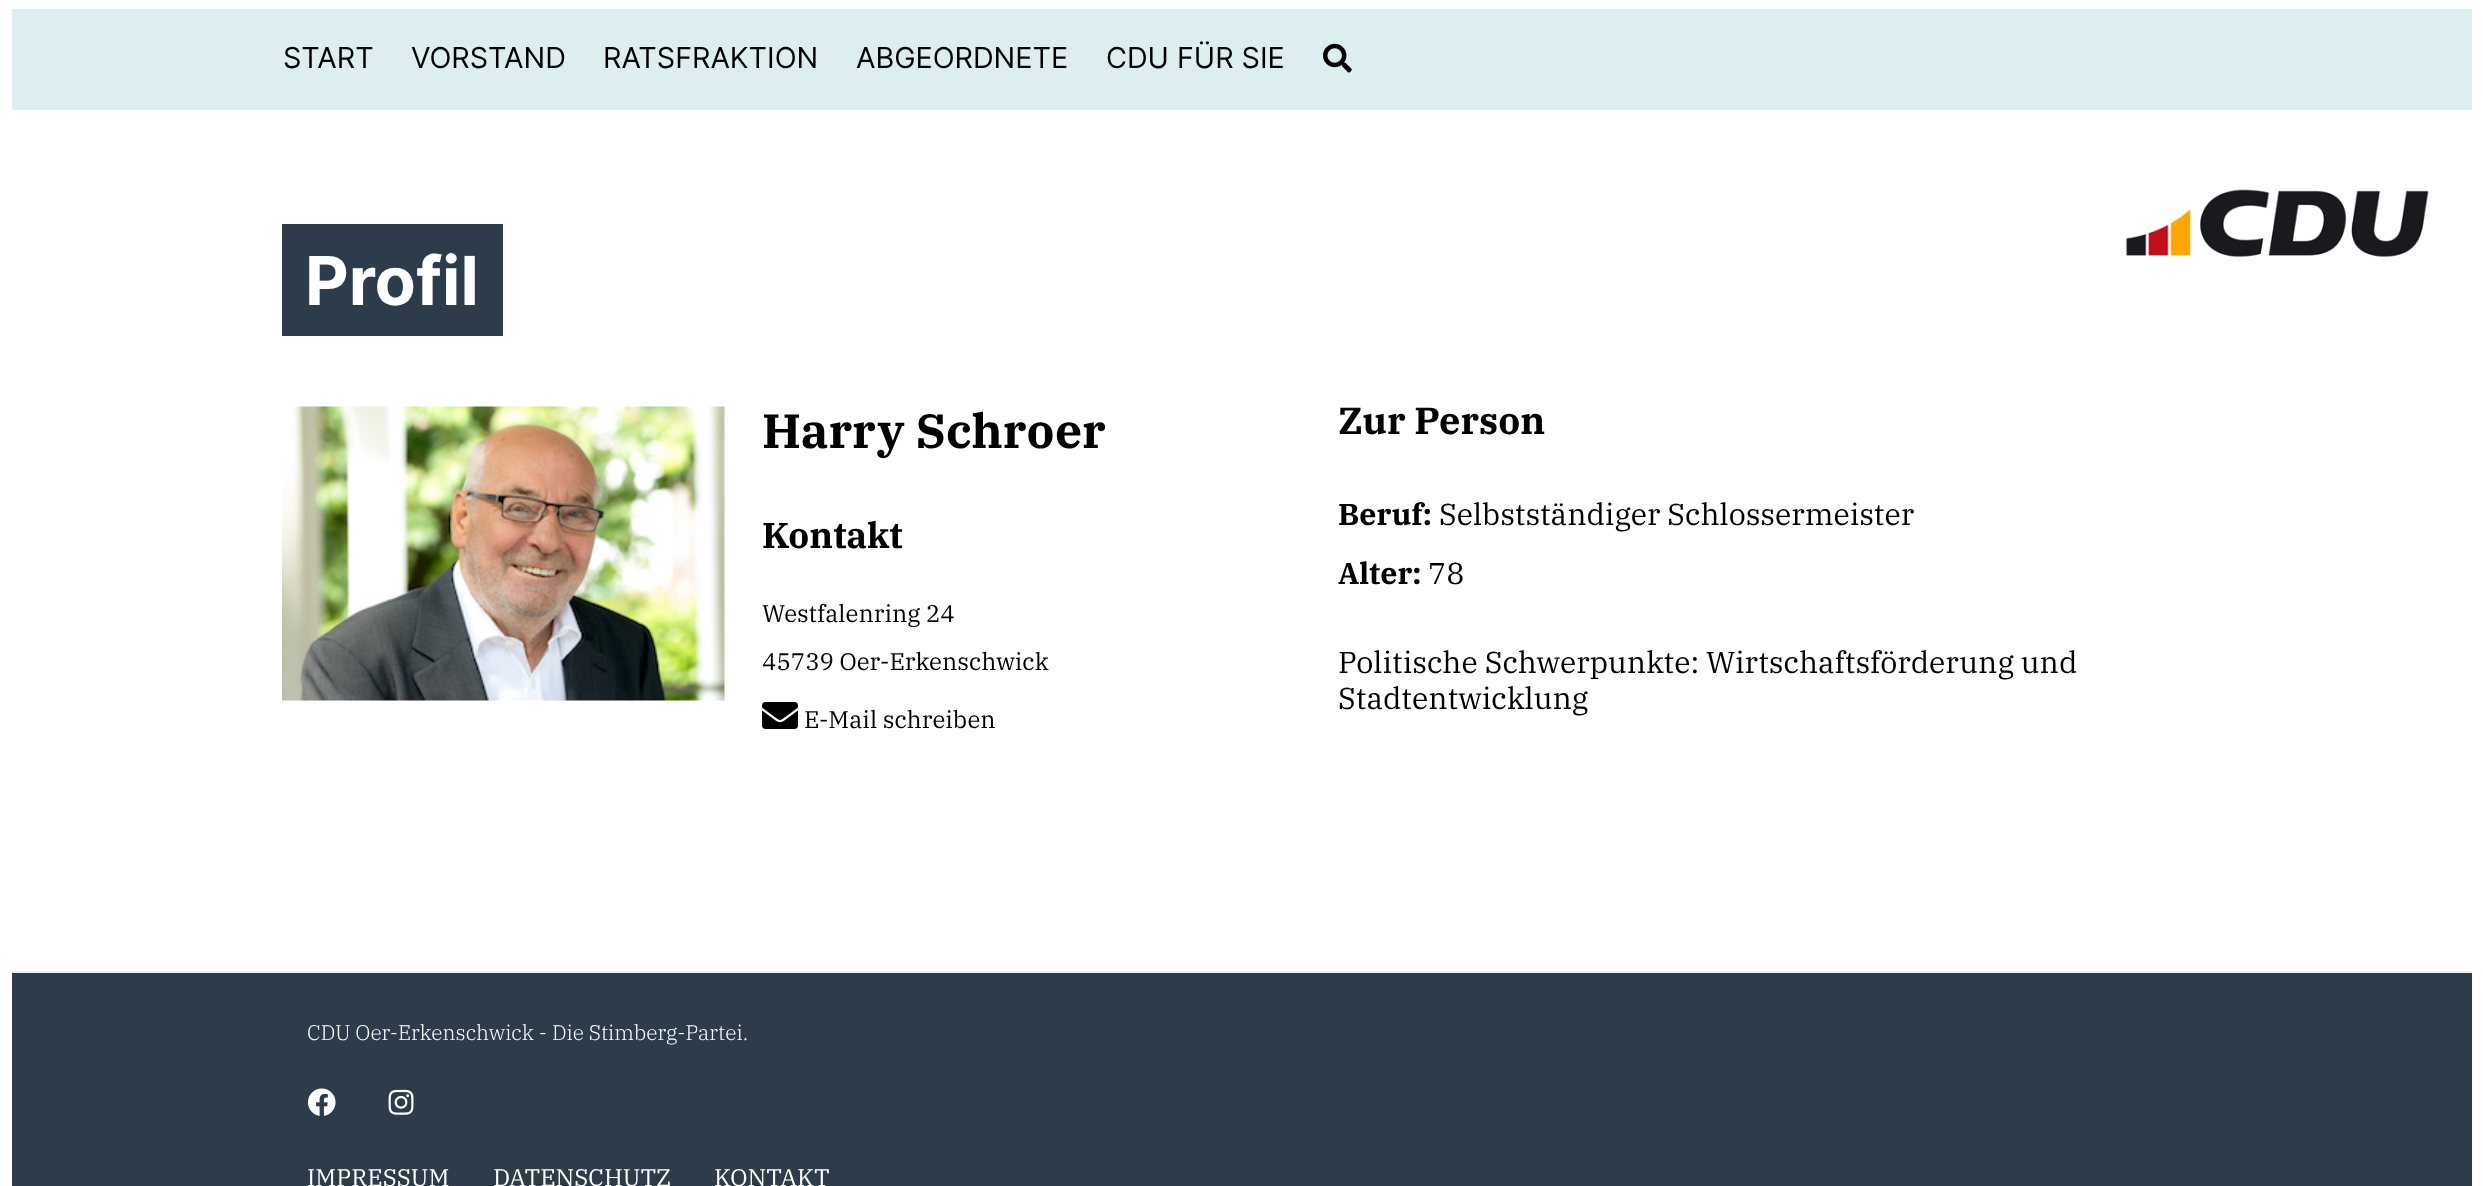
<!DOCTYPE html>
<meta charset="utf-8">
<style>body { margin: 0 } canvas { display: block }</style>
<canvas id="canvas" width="2483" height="1186"></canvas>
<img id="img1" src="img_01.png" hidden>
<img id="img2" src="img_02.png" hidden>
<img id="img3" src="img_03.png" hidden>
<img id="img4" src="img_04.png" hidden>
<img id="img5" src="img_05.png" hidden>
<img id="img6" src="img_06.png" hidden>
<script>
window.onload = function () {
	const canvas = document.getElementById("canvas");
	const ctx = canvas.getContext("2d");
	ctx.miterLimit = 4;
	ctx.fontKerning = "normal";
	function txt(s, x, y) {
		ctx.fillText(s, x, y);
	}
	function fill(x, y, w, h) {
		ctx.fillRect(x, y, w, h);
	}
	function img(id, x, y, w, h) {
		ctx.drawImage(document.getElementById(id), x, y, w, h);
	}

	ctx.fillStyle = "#FFFFFF";
	fill(0, 0, 2483, 1186);
	ctx.fillStyle = "#DDEEF1";
	fill(12, 9, 2460, 101);
	img("img1", 1323, 43, 29, 30);
	img("img2", 2125, 189, 304, 68);
	ctx.fillStyle = "#2D3C4B";
	fill(282, 224, 221, 112);
	img("img3", 282, 406, 443, 295);
	img("img4", 762, 702, 36, 27);
	fill(12, 973, 2460, 213);
	ctx.fillStyle = "#EFEFEF";
	fill(12, 971, 2460, 2);
	img("img5", 307, 1088, 29, 28);
	img("img6", 388, 1089, 26, 26);
	ctx.font = "28.75px Inter";
	ctx.fillStyle = "#000000";
	txt("START", 283, 68);
	txt("VORSTAND", 411, 68);
	txt("RATSFRAKTION", 603, 68);
	txt("ABGEORDNETE", 856, 68);
	txt("CDU FÜR SIE", 1106, 68);
	ctx.font = "bold 67.5px Inter";
	ctx.fillStyle = "#FFFFFF";
	txt("Profil", 305, 305);
	ctx.font = "bold 48px IBM Plex Serif";
	ctx.fillStyle = "#000000";
	txt("Harry Schroer", 762, 448);
	ctx.font = "bold 36px IBM Plex Serif";
	txt("Kontakt", 762, 548);
	ctx.font = "24px IBM Plex Serif";
	txt("Westfalenring 24", 762, 622);
	txt("45739 Oer-Erkenschwick", 762, 670);
	txt("E-Mail schreiben", 804, 728);
	ctx.font = "bold 37.75px IBM Plex Serif";
	txt("Zur Person", 1338, 434);
	ctx.font = "bold 30.25px IBM Plex Serif";
	txt("Beruf:", 1338, 525);
	ctx.font = "30.25px IBM Plex Serif";
	txt("Selbstständiger Schlossermeister", 1439, 525);
	ctx.font = "bold 30.25px IBM Plex Serif";
	txt("Alter:", 1338, 584);
	ctx.font = "30.25px IBM Plex Serif";
	txt("78", 1428, 584);
	txt("Politische Schwerpunkte: Wirtschaftsförderung und", 1338, 673);
	txt("Stadtentwicklung", 1338, 709);
	ctx.font = "300 21px IBM Plex Serif";
	ctx.fillStyle = "#FFFFFF";
	txt("CDU Oer-Erkenschwick - Die Stimberg-Partei.", 307, 1040);
	ctx.font = "24px IBM Plex Serif";
	txt("IMPRESSUM", 307, 1186);
	txt("DATENSCHUTZ", 493, 1186);
	txt("KONTAKT", 714, 1186);
};
</script>
